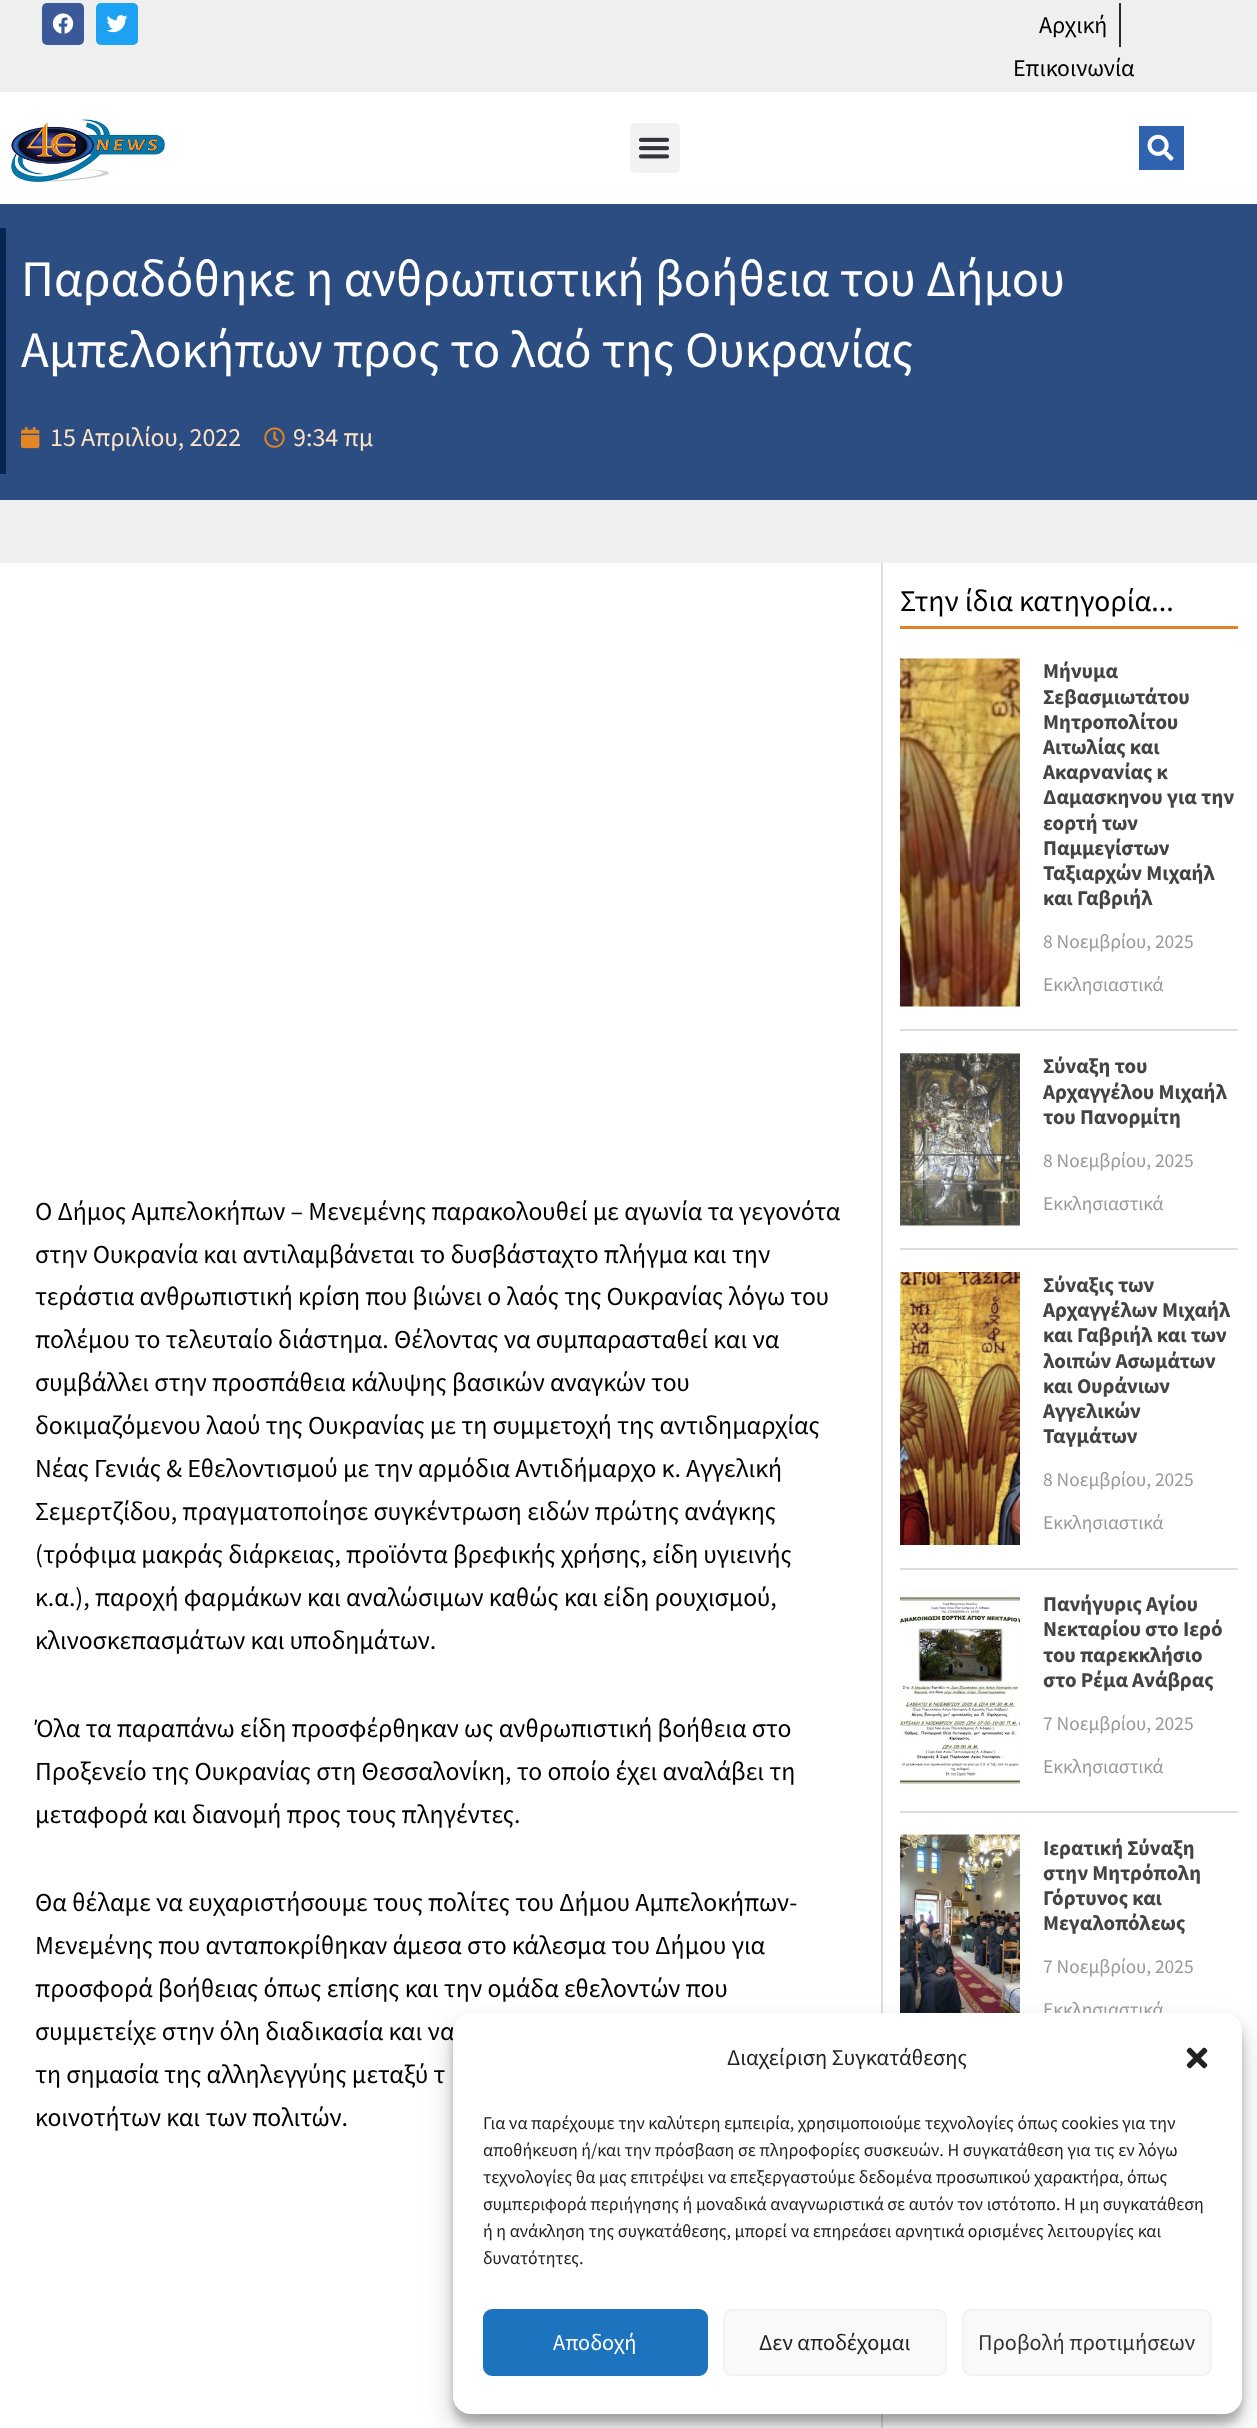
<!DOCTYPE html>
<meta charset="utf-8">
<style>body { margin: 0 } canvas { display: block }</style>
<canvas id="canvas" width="1257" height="2428"></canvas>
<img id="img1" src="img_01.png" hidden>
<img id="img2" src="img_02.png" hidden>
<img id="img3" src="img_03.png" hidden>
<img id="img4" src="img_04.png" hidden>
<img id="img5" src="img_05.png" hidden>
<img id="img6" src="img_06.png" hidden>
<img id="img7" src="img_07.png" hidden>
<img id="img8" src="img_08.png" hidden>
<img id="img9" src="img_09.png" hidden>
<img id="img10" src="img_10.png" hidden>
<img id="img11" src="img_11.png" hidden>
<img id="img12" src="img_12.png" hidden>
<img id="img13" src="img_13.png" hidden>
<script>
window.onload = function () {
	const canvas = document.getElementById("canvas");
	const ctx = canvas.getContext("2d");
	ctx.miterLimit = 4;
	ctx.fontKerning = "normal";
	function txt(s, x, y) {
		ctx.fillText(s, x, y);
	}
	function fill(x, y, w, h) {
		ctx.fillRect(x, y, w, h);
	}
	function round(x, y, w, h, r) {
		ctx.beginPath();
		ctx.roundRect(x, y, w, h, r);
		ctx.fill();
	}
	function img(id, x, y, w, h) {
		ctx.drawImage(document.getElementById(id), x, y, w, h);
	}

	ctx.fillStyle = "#EFEFEF";
	fill(0, 0, 1257, 2428);
	ctx.fillStyle = "#3B5998";
	round(42, 3, 42, 42, 5);
	img("img1", 52, 13, 22, 21);
	ctx.fillStyle = "#1DA1F2";
	round(96, 3, 42, 42, 5);
	img("img2", 106, 15, 22, 18);
	ctx.fillStyle = "#2A2A2A";
	fill(1119, 3, 2, 44);
	ctx.fillStyle = "#FFFFFF";
	fill(0, 92, 1257, 112);
	img("img3", 9, 118, 158, 68);
	ctx.fillStyle = "#F2F2F2";
	round(630, 123, 50, 50, 5);
	img("img4", 638, 137, 32, 22);
	ctx.fillStyle = "#2F63AF";
	fill(1139, 126, 45, 44);
	img("img5", 1147, 134, 27, 27);
	ctx.fillStyle = "#2B4D81";
	fill(0, 204, 1257, 296);
	ctx.fillStyle = "#062552";
	fill(0, 228, 6, 246);
	img("img6", 21, 427, 19, 22);
	img("img7", 264, 427, 21, 21);
	ctx.fillStyle = "#FFFFFF";
	fill(0, 563, 881, 1865);
	fill(883, 563, 374, 1865);
	ctx.fillStyle = "#DEDEDE";
	fill(881, 563, 2, 1865);
	ctx.fillStyle = "#E38525";
	fill(900, 626, 338, 3);
	ctx.fillStyle = "#DDDDDD";
	fill(900, 1029, 338, 2);
	img("img8", 900, 658, 120, 349);
	fill(900, 1248, 338, 2);
	img("img9", 900, 1053, 120, 173);
	fill(900, 1568, 338, 2);
	img("img10", 900, 1272, 120, 273);
	fill(900, 1811, 338, 2);
	img("img11", 900, 1591, 120, 197);
	img("img12", 900, 1834, 120, 179);
	ctx.fillStyle = "rgba(0, 0, 0, 0.23)";
	ctx.filter = "blur(4.5px)";
	ctx.beginPath();
	ctx.roundRect(453, 2022, 789, 401, 18);
	ctx.fill();
	ctx.filter = "none";
	ctx.fillStyle = "rgba(0, 0, 0, 0.19)";
	ctx.filter = "blur(15px)";
	ctx.beginPath();
	ctx.roundRect(453, 2028, 789, 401, 18);
	ctx.fill();
	ctx.filter = "none";
	ctx.font = "24px Source Sans Pro";
	ctx.fillStyle = "#000000";
	txt("Αρχική", 1039, 33);
	txt("Επικοινωνία", 1013, 76);
	ctx.font = "51px Source Sans Pro";
	ctx.fillStyle = "#FFFFFF";
	txt("Παραδόθηκε η ανθρωπιστική βοήθεια του Δήμου", 21, 296);
	txt("Αμπελοκήπων προς το λαό της Ουκρανίας", 21, 367);
	ctx.font = "26px Source Sans Pro";
	ctx.fillStyle = "#FDE2C6";
	txt("15 Απριλίου, 2022", 50, 446);
	txt("9:34 πμ", 293, 446);
	ctx.fillStyle = "#000000";
	txt("Ο Δήμος Αμπελοκήπων – Μενεμένης παρακολουθεί με αγωνία τα γεγονότα", 35, 1220);
	txt("στην Ουκρανία και αντιλαμβάνεται το δυσβάσταχτο πλήγμα και την", 35, 1263);
	txt("τεράστια ανθρωπιστική κρίση που βιώνει ο λαός της Ουκρανίας λόγω του", 35, 1305);
	txt("πολέμου το τελευταίο διάστημα. Θέλοντας να συμπαρασταθεί και να", 35, 1348);
	txt("συμβάλλει στην προσπάθεια κάλυψης βασικών αναγκών του", 35, 1391);
	txt("δοκιμαζόμενου λαού της Ουκρανίας με τη συμμετοχή της αντιδημαρχίας", 35, 1434);
	txt("Νέας Γενιάς & Εθελοντισμού με την αρμόδια Αντιδήμαρχο κ. Αγγελική", 35, 1477);
	txt("Σεμερτζίδου, πραγματοποίησε συγκέντρωση ειδών πρώτης ανάγκης", 35, 1520);
	txt("(τρόφιμα μακράς διάρκειας, προϊόντα βρεφικής χρήσης, είδη υγιεινής", 35, 1563);
	txt("κ.α.), παροχή φαρμάκων και αναλώσιμων καθώς και είδη ρουχισμού,", 35, 1606);
	txt("κλινοσκεπασμάτων και υποδημάτων.", 35, 1649);
	txt("Όλα τα παραπάνω είδη προσφέρθηκαν ως ανθρωπιστική βοήθεια στο", 35, 1737);
	txt("Προξενείο της Ουκρανίας στη Θεσσαλονίκη, το οποίο έχει αναλάβει τη", 35, 1780);
	txt("μεταφορά και διανομή προς τους πληγέντες.", 35, 1823);
	txt("Θα θέλαμε να ευχαριστήσουμε τους πολίτες του Δήμου Αμπελοκήπων-", 35, 1911);
	txt("Μενεμένης που ανταποκρίθηκαν άμεσα στο κάλεσμα του Δήμου για", 35, 1954);
	txt("προσφορά βοήθειας όπως επίσης και την ομάδα εθελοντών που", 35, 1997);
	txt("συμμετείχε στην όλη διαδικασία και να", 35, 2040);
	txt("τη σημασία της αλληλεγγύης μεταξύ τ", 35, 2083);
	txt("κοινοτήτων και των πολιτών.", 35, 2126);
	ctx.font = "30px Source Sans Pro";
	txt("Στην ίδια κατηγορία...", 900, 611);
	ctx.font = "bold 21px Source Sans Pro";
	ctx.fillStyle = "#444444";
	txt("Μήνυμα", 1043, 678);
	txt("Σεβασμιωτάτου", 1043, 704);
	txt("Μητροπολίτου", 1043, 729);
	txt("Αιτωλίας και", 1043, 754);
	txt("Ακαρνανίας κ", 1043, 779);
	txt("Δαμασκηνου για την", 1043, 804);
	txt("εορτή των", 1043, 830);
	txt("Παμμεγίστων", 1043, 855);
	txt("Ταξιαρχών Μιχαήλ", 1043, 880);
	txt("και Γαβριήλ", 1043, 905);
	ctx.font = "19.5px Source Sans Pro";
	ctx.fillStyle = "#999999";
	txt("8 Νοεμβρίου, 2025", 1043, 948);
	txt("Εκκλησιαστικά", 1043, 991);
	ctx.font = "bold 21px Source Sans Pro";
	ctx.fillStyle = "#444444";
	txt("Σύναξη του", 1043, 1073);
	txt("Αρχαγγέλου Μιχαήλ", 1043, 1099);
	txt("του Πανορμίτη", 1043, 1124);
	ctx.font = "19.5px Source Sans Pro";
	ctx.fillStyle = "#999999";
	txt("8 Νοεμβρίου, 2025", 1043, 1167);
	txt("Εκκλησιαστικά", 1043, 1210);
	ctx.font = "bold 21px Source Sans Pro";
	ctx.fillStyle = "#444444";
	txt("Σύναξις των", 1043, 1292);
	txt("Αρχαγγέλων Μιχαήλ", 1043, 1317);
	txt("και Γαβριήλ και των", 1043, 1342);
	txt("λοιπών Ασωμάτων", 1043, 1368);
	txt("και Ουράνιων", 1043, 1393);
	txt("Αγγελικών", 1043, 1418);
	txt("Ταγμάτων", 1043, 1443);
	ctx.font = "19.5px Source Sans Pro";
	ctx.fillStyle = "#999999";
	txt("8 Νοεμβρίου, 2025", 1043, 1486);
	txt("Εκκλησιαστικά", 1043, 1529);
	ctx.font = "bold 21px Source Sans Pro";
	ctx.fillStyle = "#444444";
	txt("Πανήγυρις Αγίου", 1043, 1611);
	txt("Νεκταρίου στο Ιερό", 1043, 1636);
	txt("του παρεκκλήσιο", 1043, 1662);
	txt("στο Ρέμα Ανάβρας", 1043, 1687);
	ctx.font = "19.5px Source Sans Pro";
	ctx.fillStyle = "#999999";
	txt("7 Νοεμβρίου, 2025", 1043, 1730);
	txt("Εκκλησιαστικά", 1043, 1773);
	ctx.font = "bold 21px Source Sans Pro";
	ctx.fillStyle = "#444444";
	txt("Ιερατική Σύναξη", 1043, 1855);
	txt("στην Μητρόπολη", 1043, 1880);
	txt("Γόρτυνος και", 1043, 1905);
	txt("Μεγαλοπόλεως", 1043, 1930);
	ctx.font = "19.5px Source Sans Pro";
	ctx.fillStyle = "#999999";
	txt("7 Νοεμβρίου, 2025", 1043, 1973);
	txt("Εκκλησιαστικά", 1043, 2016);
	ctx.fillStyle = "#FFFFFF";
	round(453, 2013, 789, 401, 18);
	ctx.font = "22.5px Source Sans Pro";
	ctx.fillStyle = "#222222";
	txt("Διαχείριση Συγκατάθεσης", 727, 2065);
	img("img13", 1186, 2047, 22, 22);
	ctx.font = "18px Source Sans Pro";
	txt("Για να παρέχουμε την καλύτερη εμπειρία, χρησιμοποιούμε τεχνολογίες όπως cookies για την", 483, 2129);
	txt("αποθήκευση ή/και την πρόσβαση σε πληροφορίες συσκευών. Η συγκατάθεση για τις εν λόγω", 483, 2156);
	txt("τεχνολογίες θα μας επιτρέψει να επεξεργαστούμε δεδομένα προσωπικού χαρακτήρα, όπως", 483, 2183);
	txt("συμπεριφορά περιήγησης ή μοναδικά αναγνωριστικά σε αυτόν τον ιστότοπο. Η μη συγκατάθεση", 483, 2210);
	txt("ή η ανάκληση της συγκατάθεσης, μπορεί να επηρεάσει αρνητικά ορισμένες λειτουργίες και", 483, 2237);
	txt("δυνατότητες.", 483, 2264);
	ctx.fillStyle = "#1E73BE";
	ctx.beginPath();
	ctx.roundRect(484, 2310, 223, 65, 8);
	ctx.fill();
	ctx.strokeStyle = "#1E73BE";
	ctx.lineWidth = 2;
	ctx.stroke();
	ctx.font = "22.5px Source Sans Pro";
	ctx.fillStyle = "#FFFFFF";
	txt("Αποδοχή", 553, 2350);
	ctx.fillStyle = "#F9F9F9";
	ctx.beginPath();
	ctx.roundRect(724, 2310, 222, 65, 8);
	ctx.fill();
	ctx.strokeStyle = "#F2F2F2";
	ctx.stroke();
	ctx.fillStyle = "#222222";
	txt("Δεν αποδέχομαι", 759, 2350);
	ctx.fillStyle = "#F9F9F9";
	ctx.beginPath();
	ctx.roundRect(963, 2310, 248, 65, 8);
	ctx.fill();
	ctx.stroke();
	ctx.fillStyle = "#333333";
	txt("Προβολή προτιμήσεων", 978, 2350);
};
</script>
